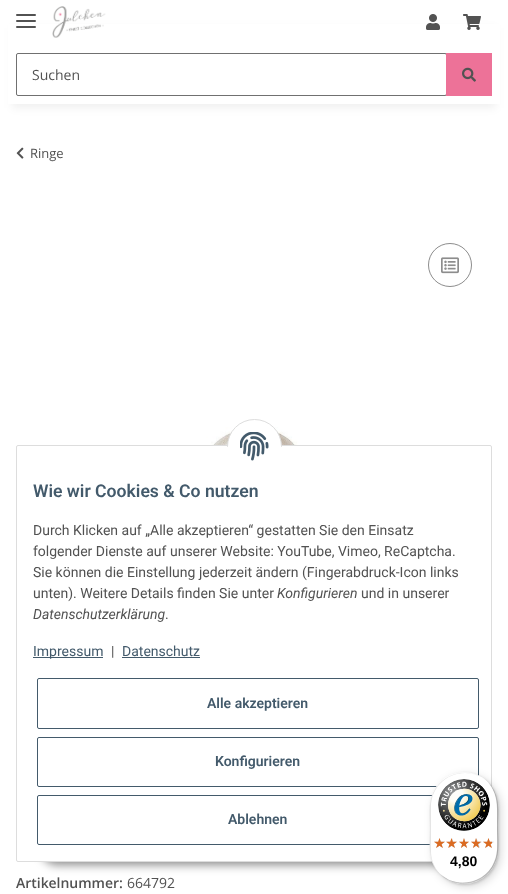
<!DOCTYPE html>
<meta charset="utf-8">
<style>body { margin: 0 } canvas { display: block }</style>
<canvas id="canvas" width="508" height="894"></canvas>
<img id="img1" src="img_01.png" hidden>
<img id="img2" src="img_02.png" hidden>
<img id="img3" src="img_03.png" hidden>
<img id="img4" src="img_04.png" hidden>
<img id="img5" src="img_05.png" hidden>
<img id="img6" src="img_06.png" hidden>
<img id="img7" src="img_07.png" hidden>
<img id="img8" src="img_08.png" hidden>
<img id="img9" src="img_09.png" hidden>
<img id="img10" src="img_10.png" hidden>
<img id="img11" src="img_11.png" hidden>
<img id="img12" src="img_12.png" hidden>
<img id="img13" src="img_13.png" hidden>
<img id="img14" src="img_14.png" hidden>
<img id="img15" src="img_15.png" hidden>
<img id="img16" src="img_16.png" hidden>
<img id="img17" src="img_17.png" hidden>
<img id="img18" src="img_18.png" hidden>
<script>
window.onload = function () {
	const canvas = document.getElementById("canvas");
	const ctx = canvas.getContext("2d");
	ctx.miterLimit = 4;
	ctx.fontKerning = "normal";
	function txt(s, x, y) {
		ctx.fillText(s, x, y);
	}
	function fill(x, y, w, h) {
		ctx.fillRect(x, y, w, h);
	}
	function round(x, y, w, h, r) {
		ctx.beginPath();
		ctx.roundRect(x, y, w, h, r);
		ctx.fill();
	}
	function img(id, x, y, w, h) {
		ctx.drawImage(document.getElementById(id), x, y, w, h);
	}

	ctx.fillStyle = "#FFFFFF";
	fill(0, 0, 508, 894);
	ctx.fillStyle = "rgba(0, 0, 0, 0.06)";
	ctx.filter = "blur(4.5px)";
	ctx.beginPath();
	ctx.rect(12, 28, 484, 80);
	ctx.fill();
	ctx.filter = "none";
	ctx.fillStyle = "#FFFFFF";
	fill(8, 24, 492, 80);
	ctx.fillStyle = "#525252";
	round(16, 20, 20, 2, 1);
	round(16, 14, 20, 2, 1);
	round(16, 26, 20, 2, 1);
	img("img1", 52, 6, 54, 32);
	img("img2", 426, 14, 14, 16);
	img("img3", 463, 14, 18, 16);
	ctx.beginPath();
	ctx.roundRect(16.5, 53.5, 430, 42, 1.5);
	ctx.strokeStyle = "#707070";
	ctx.stroke();
	ctx.fillStyle = "#ED7298";
	fill(446, 53, 46, 43);
	img("img4", 462, 67, 14, 15);
	img("img5", 16, 147, 8, 12);
	ctx.beginPath();
	ctx.arc(450, 265, 21.5, 0, Math.PI * 2);
	ctx.strokeStyle = "#8D8D8D";
	ctx.stroke();
	img("img6", 441, 257, 18, 17);
	img("img7", 192, 427, 124, 18);
	ctx.fillStyle = "rgba(0, 0, 0, 0.45)";
	ctx.filter = "blur(5px)";
	ctx.beginPath();
	ctx.roundRect(41, 833, 426, 32, 16);
	ctx.fill();
	ctx.filter = "none";
	ctx.fillStyle = "#FFFFFF";
	ctx.beginPath();
	ctx.roundRect(16.5, 445.5, 475, 416, 1.5);
	ctx.fill();
	ctx.strokeStyle = "#DDDDDD";
	ctx.stroke();
	ctx.beginPath();
	ctx.arc(254.5, 446.5, 27, 0, Math.PI * 2);
	ctx.fill();
	ctx.stroke();
	fill(227, 447, 55, 27);
	img("img8", 240, 432, 29, 29);
	ctx.fillStyle = "#435A6B";
	fill(33, 657, 70, 1);
	fill(122, 657, 78, 1);
	ctx.beginPath();
	ctx.roundRect(37.5, 678.5, 441, 50, 1.5);
	ctx.strokeStyle = "#435A6B";
	ctx.stroke();
	ctx.beginPath();
	ctx.roundRect(37.5, 737.5, 441, 49, 1.5);
	ctx.stroke();
	ctx.beginPath();
	ctx.roundRect(37.5, 795.5, 441, 49, 1.5);
	ctx.stroke();
	ctx.fillStyle = "rgba(0, 0, 0, 0.15)";
	ctx.filter = "blur(4px)";
	ctx.beginPath();
	ctx.roundRect(433, 775, 68, 112, 34);
	ctx.fill();
	ctx.filter = "none";
	ctx.filter = "blur(1px)";
	ctx.beginPath();
	ctx.roundRect(431, 773, 68, 112, 34);
	ctx.fill();
	ctx.filter = "none";
	ctx.fillStyle = "#FFFFFF";
	round(430, 772, 68, 112, 34);
	ctx.fillStyle = "#E5E5E5";
	ctx.beginPath();
	ctx.moveTo(465, 773);
	ctx.bezierCurveTo(473, 773, 481, 776, 487, 781);
	ctx.bezierCurveTo(470, 766, 442, 772, 433, 793);
	ctx.bezierCurveTo(428, 803, 430, 817, 430, 828);
	ctx.bezierCurveTo(430, 843, 427, 860, 439, 873);
	ctx.bezierCurveTo(434, 867, 431, 859, 431, 851);
	ctx.lineTo(431, 807);
	ctx.bezierCurveTo(431, 788, 446, 773, 465, 773);
	ctx.closePath();
	ctx.fill();
	ctx.fillStyle = "rgba(0, 0, 0, 0.2)";
	ctx.beginPath();
	ctx.moveTo(441, 875);
	ctx.bezierCurveTo(458, 890, 486, 884, 495, 863);
	ctx.bezierCurveTo(500, 853, 498, 839, 498, 828);
	ctx.bezierCurveTo(498, 813, 501, 796, 489, 783);
	ctx.bezierCurveTo(499, 796, 497, 812, 497, 827);
	ctx.bezierCurveTo(497, 838, 499, 852, 494, 862);
	ctx.bezierCurveTo(486, 883, 458, 889, 441, 875);
	ctx.closePath();
	ctx.fill();
	ctx.fillStyle = "rgba(50, 50, 50, 0.2)";
	ctx.beginPath();
	ctx.moveTo(437, 871);
	ctx.bezierCurveTo(444, 879, 453, 884, 464, 884);
	ctx.bezierCurveTo(483, 884, 498, 869, 498, 850);
	ctx.lineTo(498, 806);
	ctx.bezierCurveTo(498, 795, 493, 786, 485, 779);
	ctx.bezierCurveTo(492, 786, 497, 795, 497, 805);
	ctx.lineTo(497, 849);
	ctx.bezierCurveTo(497, 868, 482, 883, 463, 883);
	ctx.bezierCurveTo(453, 883, 444, 878, 437, 871);
	ctx.closePath();
	ctx.fill();
	ctx.fillStyle = "rgba(255, 255, 255, 0.3)";
	ctx.beginPath();
	ctx.moveTo(464, 772);
	ctx.bezierCurveTo(483, 772, 498, 787, 498, 806);
	ctx.bezierCurveTo(498, 787, 482, 772, 464, 772);
	ctx.closePath();
	ctx.moveTo(498, 850);
	ctx.bezierCurveTo(498, 868, 482, 884, 464, 884);
	ctx.bezierCurveTo(483, 884, 498, 869, 498, 850);
	ctx.closePath();
	ctx.moveTo(464, 884);
	ctx.bezierCurveTo(445, 884, 430, 868, 430, 850);
	ctx.bezierCurveTo(430, 869, 445, 884, 464, 884);
	ctx.closePath();
	ctx.fill("evenodd");
	img("img9", 438, 779, 52, 52);
	img("img10", 434, 838, 11, 10);
	img("img11", 447, 838, 10, 10);
	img("img12", 459, 838, 10, 10);
	img("img13", 471, 838, 11, 10);
	img("img13", 483, 838, 11, 10);
	img("img14", 434, 838, 11, 10);
	img("img15", 446, 838, 11, 10);
	img("img16", 459, 838, 10, 10);
	img("img17", 471, 838, 10, 10);
	img("img18", 483, 838, 9, 10);
	ctx.font = "14px Open Sans";
	ctx.fillStyle = "#525252";
	txt("Suchen", 32, 80);
	ctx.font = "13px Open Sans";
	txt("Ringe", 30, 158);
	ctx.font = "600 14px Open Sans";
	txt("Artikelnummer:", 16, 888);
	ctx.font = "14px Open Sans";
	txt("664792", 127, 888);
	ctx.font = "600 17.6px Roboto";
	ctx.fillStyle = "#435A6B";
	txt("Wie wir Cookies & Co nutzen", 33, 497);
	ctx.font = "14px Roboto";
	ctx.fillStyle = "#525252";
	txt("Durch Klicken auf „Alle akzeptieren“ gestatten Sie den Einsatz", 33, 535);
	txt("folgender Dienste auf unserer Website: YouTube, Vimeo, ReCaptcha.", 33, 556);
	txt("Sie können die Einstellung jederzeit ändern (Fingerabdruck-Icon links", 33, 577);
	txt("unten). Weitere Details finden Sie unter", 33, 598);
	ctx.font = "italic 14px Roboto";
	txt("Konfigurieren", 277, 598);
	ctx.font = "14px Roboto";
	txt("und in unserer", 361, 598);
	ctx.font = "italic 14px Roboto";
	txt("Datenschutzerklärung", 33, 619);
	ctx.font = "14px Roboto";
	txt(".", 165, 619);
	ctx.fillStyle = "#435A6B";
	txt("Impressum", 33, 656);
	ctx.fillStyle = "#525252";
	txt("|", 111, 656);
	ctx.fillStyle = "#435A6B";
	txt("Datenschutz", 122, 656);
	ctx.font = "600 14px Roboto";
	txt("Alle akzeptieren", 207, 708);
	txt("Konfigurieren", 215, 766);
	txt("Ablehnen", 228, 824);
	ctx.font = "bold 14px Liberation Sans";
	ctx.fillStyle = "#000000";
	txt("4,80", 450, 866);
};
</script>
